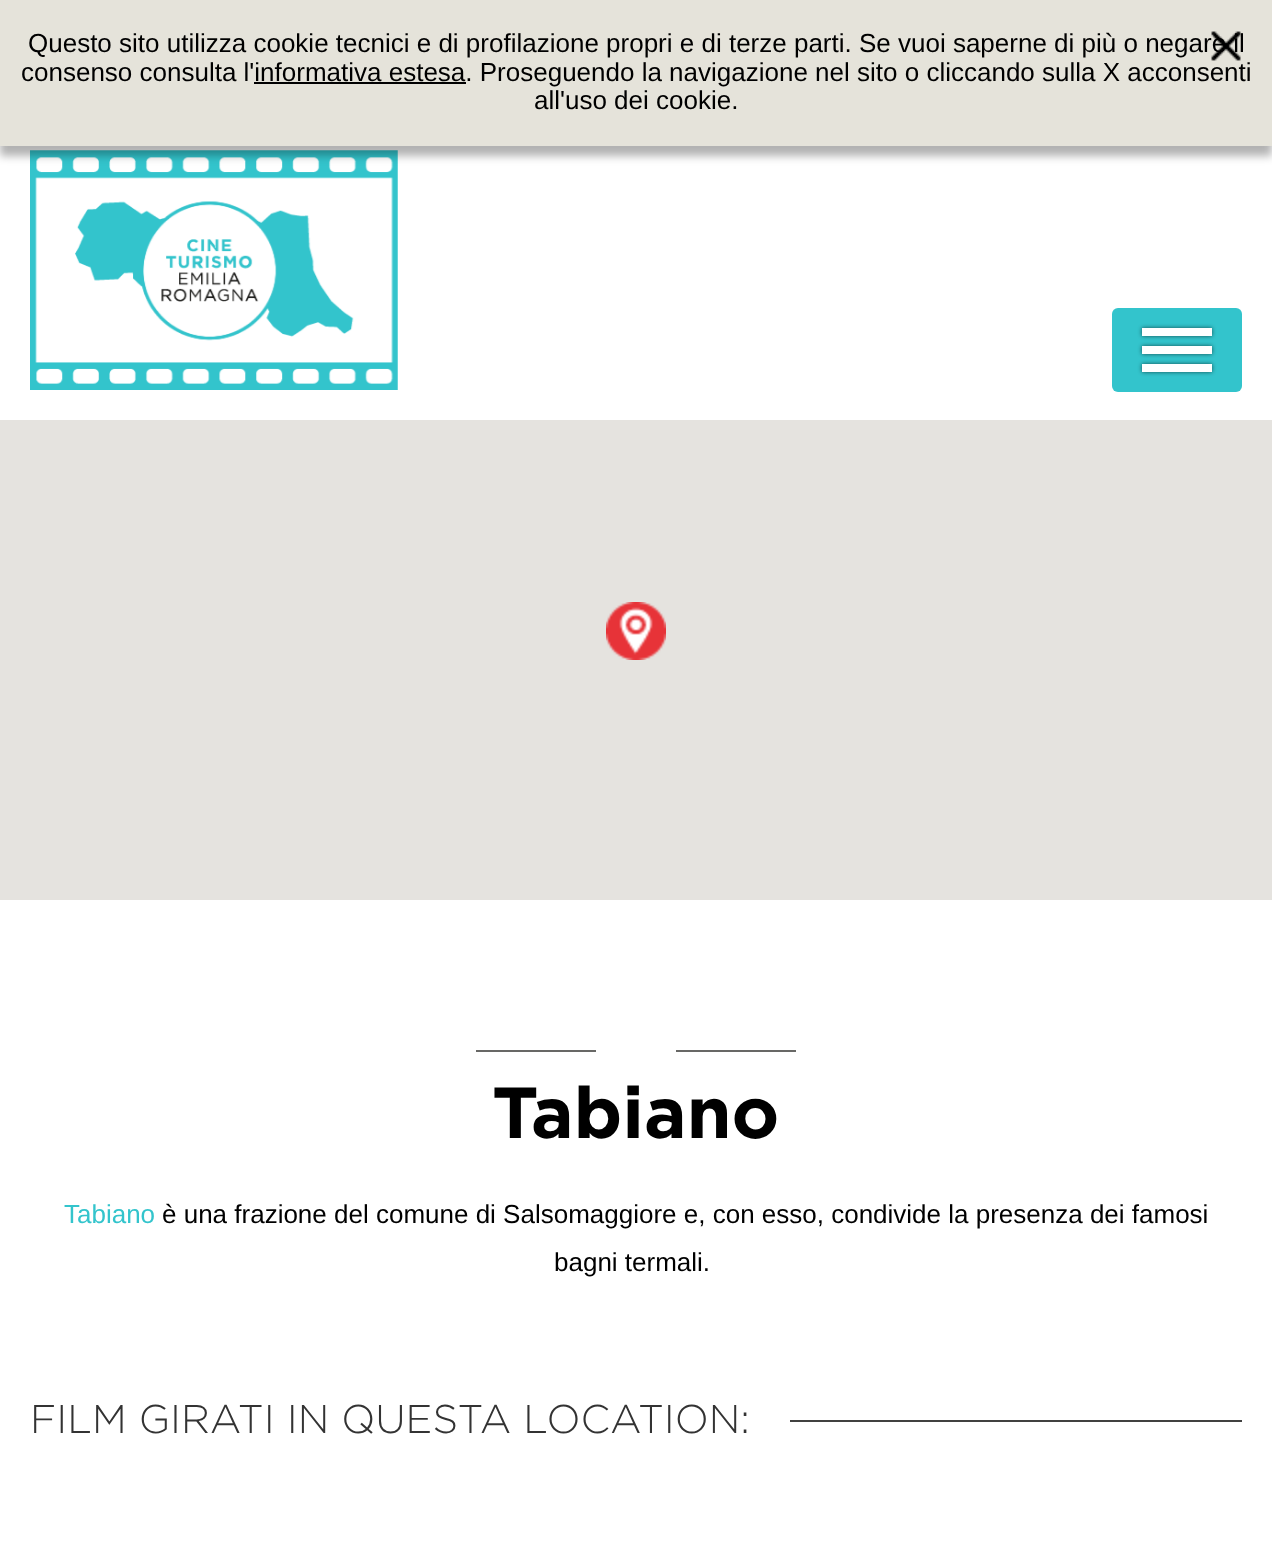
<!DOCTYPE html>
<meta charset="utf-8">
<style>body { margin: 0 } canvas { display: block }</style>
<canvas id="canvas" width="1272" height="1548"></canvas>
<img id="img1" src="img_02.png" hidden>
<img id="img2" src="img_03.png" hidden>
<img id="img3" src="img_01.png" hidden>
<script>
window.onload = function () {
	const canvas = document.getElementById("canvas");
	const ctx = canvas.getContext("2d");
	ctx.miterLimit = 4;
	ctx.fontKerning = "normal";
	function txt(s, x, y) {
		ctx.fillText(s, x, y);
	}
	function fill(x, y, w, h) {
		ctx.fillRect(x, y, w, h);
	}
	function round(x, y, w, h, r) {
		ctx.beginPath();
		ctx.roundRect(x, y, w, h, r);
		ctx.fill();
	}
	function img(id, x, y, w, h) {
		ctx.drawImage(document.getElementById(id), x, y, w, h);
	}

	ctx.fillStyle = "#FFFFFF";
	fill(0, 0, 1272, 1548);
	img("img1", 30, 150, 368, 240);
	ctx.fillStyle = "rgba(0, 0, 0, 0.3)";
	ctx.filter = "blur(4px)";
	ctx.beginPath();
	ctx.rect(0, 10, 1272, 146);
	ctx.fill();
	ctx.filter = "none";
	ctx.fillStyle = "#E5E3DA";
	fill(0, 0, 1272, 146);
	ctx.fillStyle = "#000000";
	fill(254, 82, 212, 2);
	ctx.fillStyle = "#33C4CC";
	round(1112, 308, 130, 84, 6);
	ctx.fillStyle = "rgba(0, 0, 0, 0.6)";
	ctx.filter = "blur(2px)";
	ctx.beginPath();
	ctx.rect(1142, 328, 70, 8);
	ctx.fill();
	ctx.filter = "none";
	ctx.fillStyle = "#FFFFFF";
	fill(1142, 328, 70, 8);
	ctx.fillStyle = "rgba(0, 0, 0, 0.6)";
	ctx.filter = "blur(2px)";
	ctx.beginPath();
	ctx.rect(1142, 346, 70, 8);
	ctx.fill();
	ctx.filter = "none";
	ctx.fillStyle = "#FFFFFF";
	fill(1142, 346, 70, 8);
	ctx.fillStyle = "rgba(0, 0, 0, 0.6)";
	ctx.filter = "blur(2px)";
	ctx.beginPath();
	ctx.rect(1142, 364, 70, 8);
	ctx.fill();
	ctx.filter = "none";
	ctx.fillStyle = "#FFFFFF";
	fill(1142, 364, 70, 8);
	ctx.fillStyle = "#E5E3DF";
	fill(0, 420, 1272, 480);
	img("img2", 606, 602, 60, 58);
	ctx.fillStyle = "#686866";
	fill(476, 1050, 120, 2);
	fill(676, 1050, 120, 2);
	ctx.fillStyle = "#414140";
	fill(790, 1420, 452, 2);
	ctx.font = "26px Liberation Sans";
	ctx.fillStyle = "#000000";
	txt("Questo sito utilizza cookie tecnici e di profilazione propri e di terze parti. Se vuoi saperne di più o negare il", 28, 52);
	img("img3", 1211, 31, 30, 30);
	txt("consenso consulta l'informativa estesa. Proseguendo la navigazione nel sito o cliccando sulla X acconsenti", 21, 81);
	txt("all'uso dei cookie.", 534, 109);
	ctx.font = "bold 72px Gotham";
	txt("Tabiano", 492, 1138);
	ctx.font = "26px Liberation Sans";
	ctx.fillStyle = "#33C4CC";
	txt("Tabiano", 64, 1223);
	ctx.fillStyle = "#000000";
	txt("è una frazione del comune di Salsomaggiore e, con esso, condivide la presenza dei famosi", 162, 1223);
	txt("bagni termali.", 554, 1271);
	ctx.font = "300 40px Gotham";
	ctx.fillStyle = "#333333";
	txt("FILM GIRATI IN QUESTA LOCATION:", 30, 1433);
};
</script>
